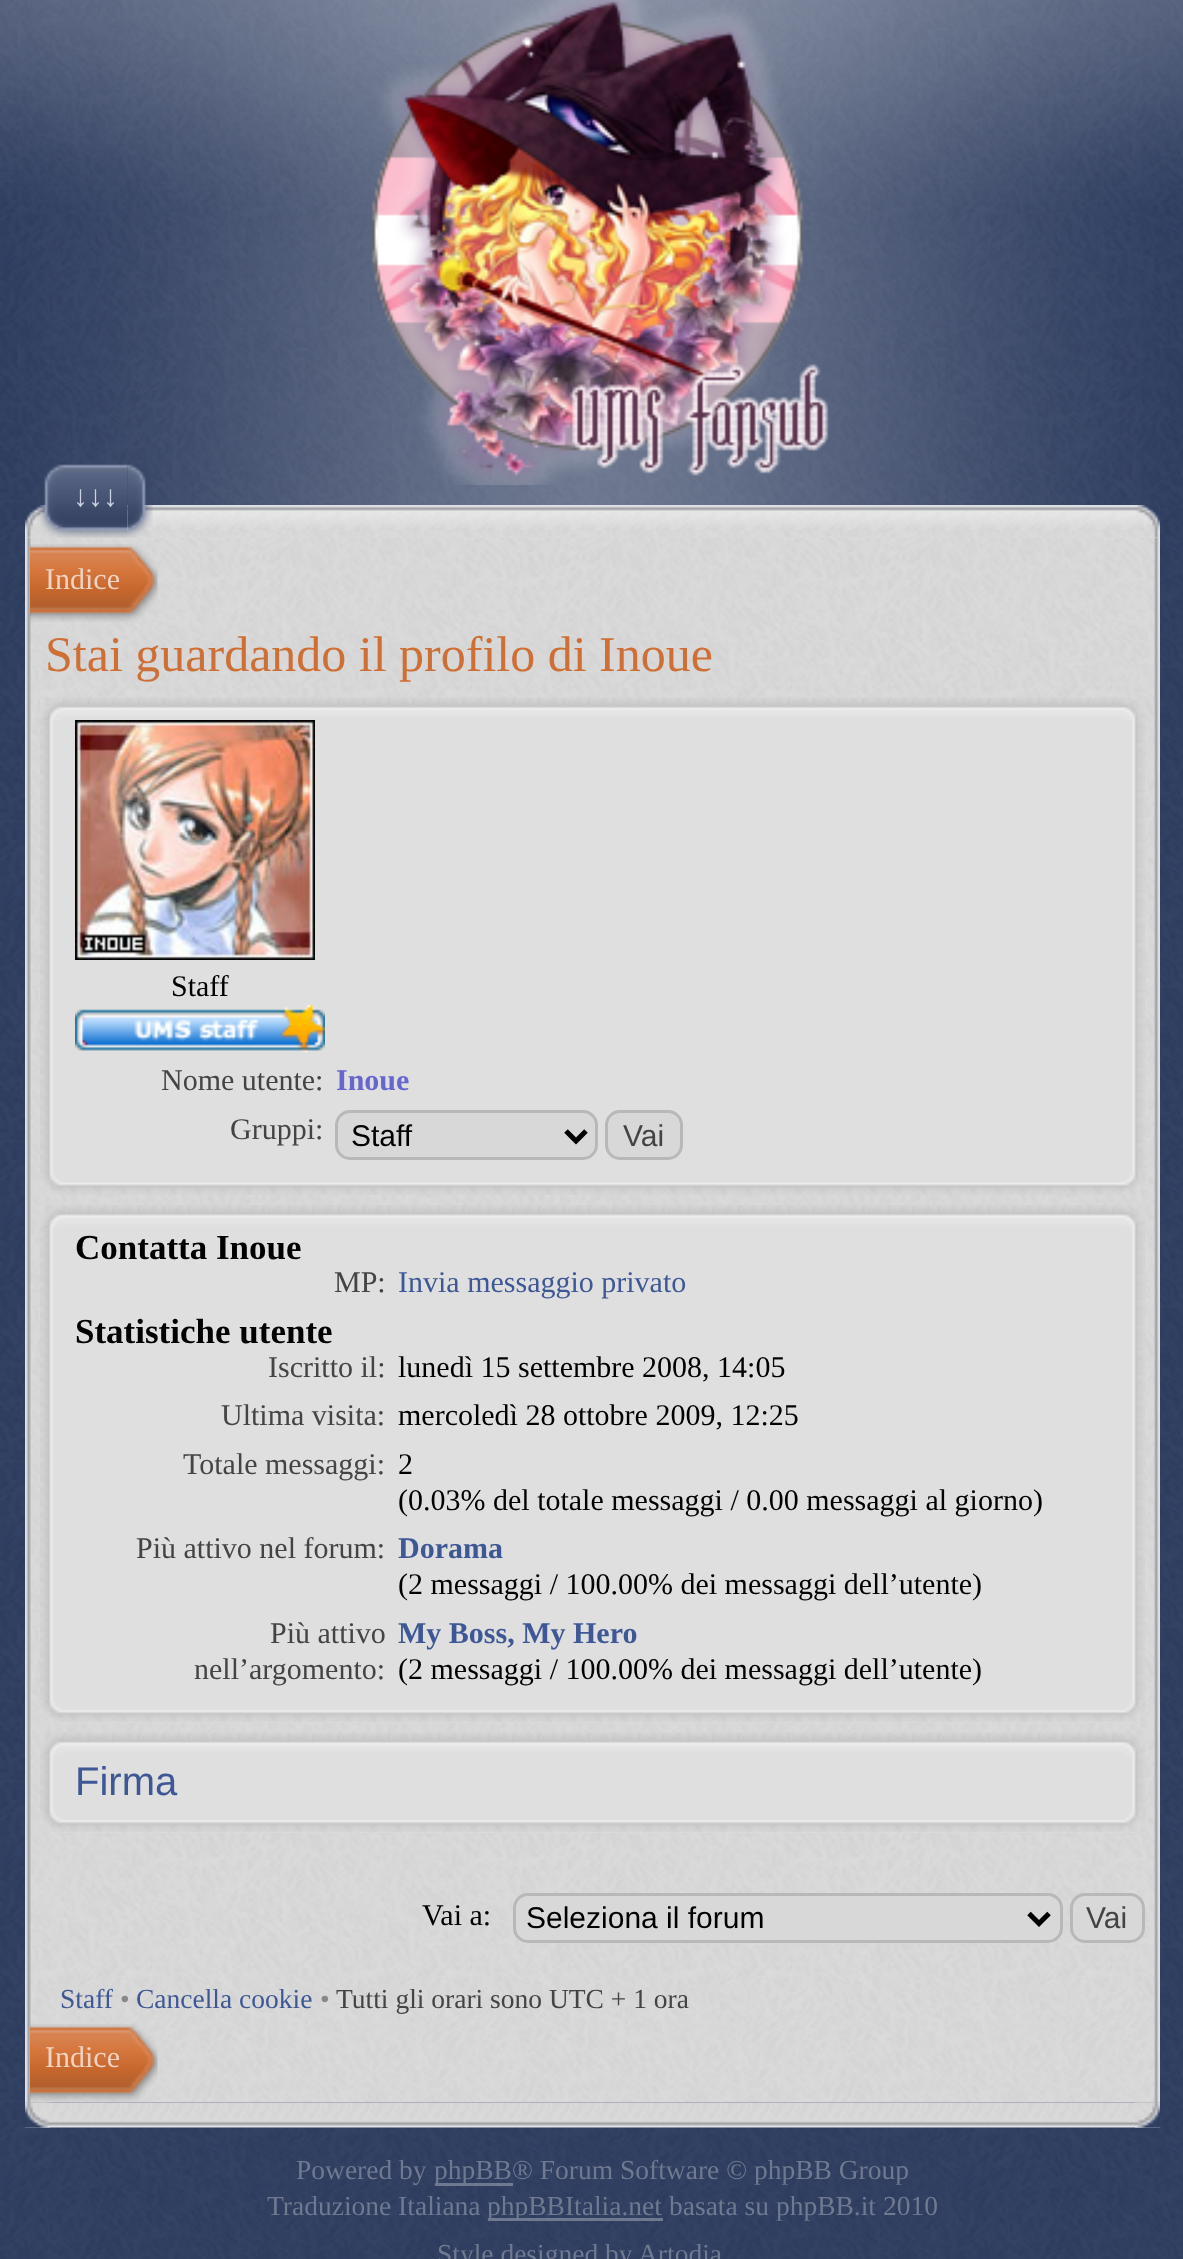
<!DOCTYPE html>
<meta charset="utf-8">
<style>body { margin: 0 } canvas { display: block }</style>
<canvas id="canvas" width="1183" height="2259"></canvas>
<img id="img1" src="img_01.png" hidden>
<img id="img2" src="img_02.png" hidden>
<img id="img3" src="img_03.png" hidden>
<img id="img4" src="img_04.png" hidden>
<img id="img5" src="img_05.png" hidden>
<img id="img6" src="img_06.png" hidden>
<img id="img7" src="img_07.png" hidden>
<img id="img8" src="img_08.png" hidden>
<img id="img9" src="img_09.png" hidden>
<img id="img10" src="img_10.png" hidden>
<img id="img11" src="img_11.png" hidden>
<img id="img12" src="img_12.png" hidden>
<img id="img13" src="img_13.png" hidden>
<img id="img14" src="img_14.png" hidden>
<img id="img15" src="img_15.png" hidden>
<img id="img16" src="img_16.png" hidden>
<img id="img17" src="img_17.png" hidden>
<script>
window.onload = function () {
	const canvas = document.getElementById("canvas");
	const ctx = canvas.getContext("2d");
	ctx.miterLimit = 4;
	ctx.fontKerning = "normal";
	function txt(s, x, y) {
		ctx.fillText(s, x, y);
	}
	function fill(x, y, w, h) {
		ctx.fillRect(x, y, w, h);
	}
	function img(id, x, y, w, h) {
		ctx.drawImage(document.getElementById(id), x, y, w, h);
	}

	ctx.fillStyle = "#FFFFFF";
	fill(0, 0, 1183, 2259);
	img("img1", 0, 0, 1183, 2259);
	img("img2", 0, 0, 1183, 505);
	img("img3", 372, 0, 457, 485);
	ctx.fillStyle = "#DADADA";
	fill(25, 537, 1135, 1);
	img("img4", 25, 505, 1135, 33);
	img("img5", 37, 464, 91, 74);
	img("img6", 127, 464, 26, 74);
	img("img7", 25, 538, 1135, 1565);
	img("img8", 120, 544, 38, 78);
	img("img9", 30, 544, 90, 78);
	ctx.fillStyle = "#DFDFDF";
	fill(55, 716, 1075, 467);
	img("img10", 40, 697, 1105, 498);
	img("img11", 75, 720, 240, 240);
	img("img12", 75, 1005, 250, 48);
	ctx.fillStyle = "#D8D8D8";
	ctx.beginPath();
	ctx.roundRect(336.5, 1111.5, 260, 47, 13.5);
	ctx.fill();
	ctx.strokeStyle = "#B8B8B8";
	ctx.lineWidth = 3;
	ctx.stroke();
	ctx.beginPath();
	ctx.moveTo(566, 1131);
	ctx.lineTo(576, 1141);
	ctx.lineTo(586, 1131);
	ctx.strokeStyle = "#000000";
	ctx.lineWidth = 5;
	ctx.stroke();
	ctx.beginPath();
	ctx.roundRect(606.5, 1111.5, 75, 47, 13.5);
	ctx.fill();
	ctx.strokeStyle = "#B8B8B8";
	ctx.lineWidth = 3;
	ctx.stroke();
	ctx.fillStyle = "#DFDFDF";
	fill(40, 1224, 1105, 499);
	img("img13", 40, 1205, 1105, 518);
	fill(40, 1751, 1105, 82);
	img("img14", 40, 1732, 1105, 101);
	ctx.fillStyle = "#D8D8D8";
	ctx.beginPath();
	ctx.roundRect(514.5, 1894.5, 547, 47, 13.5);
	ctx.fill();
	ctx.stroke();
	ctx.beginPath();
	ctx.moveTo(1029, 1913.5);
	ctx.lineTo(1039, 1923.5);
	ctx.lineTo(1049, 1913.5);
	ctx.strokeStyle = "#000000";
	ctx.lineWidth = 5;
	ctx.stroke();
	ctx.beginPath();
	ctx.roundRect(1071.5, 1894.5, 72, 47, 13.5);
	ctx.fill();
	ctx.strokeStyle = "#B8B8B8";
	ctx.lineWidth = 3;
	ctx.stroke();
	img("img15", 120, 2024, 38, 78);
	img("img16", 30, 2024, 90, 78);
	img("img17", 25, 2102, 1135, 26);
	ctx.fillStyle = "rgba(255, 255, 255, 0.3)";
	fill(435, 2183, 78, 3);
	fill(488, 2218, 175, 3);
	ctx.font = "30px Liberation Serif";
	ctx.fillStyle = "#C8D0E2";
	txt("↓↓↓", 73, 506);
	ctx.fillStyle = "#F0D3C2";
	txt("Indice", 45, 589);
	ctx.font = "50px Liberation Serif";
	ctx.fillStyle = "#CE6F36";
	txt("Stai guardando il profilo di Inoue", 45, 671);
	ctx.font = "30px Liberation Serif";
	ctx.fillStyle = "#000000";
	txt("Staff", 171, 996);
	ctx.fillStyle = "#444444";
	txt("Nome utente:", 161, 1090);
	ctx.font = "bold 30px Liberation Serif";
	ctx.fillStyle = "#6666CC";
	txt("Inoue", 336, 1090);
	ctx.font = "30px Liberation Serif";
	ctx.fillStyle = "#444444";
	txt("Gruppi:", 230, 1139);
	ctx.font = "30px Liberation Sans";
	ctx.fillStyle = "#000000";
	txt("Staff", 351, 1146);
	ctx.fillStyle = "#444444";
	txt("Vai", 623, 1146);
	ctx.font = "bold 35px Liberation Serif";
	ctx.fillStyle = "#000000";
	txt("Contatta Inoue", 75, 1259);
	ctx.font = "30px Liberation Serif";
	ctx.fillStyle = "#444444";
	txt("MP:", 334, 1292);
	ctx.fillStyle = "#3E5795";
	txt("Invia messaggio privato", 398, 1292);
	ctx.font = "bold 35px Liberation Serif";
	ctx.fillStyle = "#000000";
	txt("Statistiche utente", 75, 1343);
	ctx.font = "30px Liberation Serif";
	ctx.fillStyle = "#444444";
	txt("Iscritto il:", 268, 1377);
	ctx.fillStyle = "#000000";
	txt("lunedì 15 settembre 2008, 14:05", 398, 1377);
	ctx.fillStyle = "#444444";
	txt("Ultima visita:", 221, 1425);
	ctx.fillStyle = "#000000";
	txt("mercoledì 28 ottobre 2009, 12:25", 398, 1425);
	ctx.fillStyle = "#444444";
	txt("Totale messaggi:", 183, 1474);
	ctx.fillStyle = "#000000";
	txt("2", 398, 1474);
	txt("(0.03% del totale messaggi / 0.00 messaggi al giorno)", 398, 1510);
	ctx.fillStyle = "#444444";
	txt("Più attivo nel forum:", 136, 1558);
	ctx.font = "bold 30px Liberation Serif";
	ctx.fillStyle = "#3E5795";
	txt("Dorama", 398, 1558);
	ctx.font = "30px Liberation Serif";
	ctx.fillStyle = "#000000";
	txt("(2 messaggi / 100.00% dei messaggi dell’utente)", 398, 1594);
	ctx.fillStyle = "#444444";
	txt("Più attivo", 270, 1643);
	txt("nell’argomento:", 194, 1679);
	ctx.font = "bold 30px Liberation Serif";
	ctx.fillStyle = "#3E5795";
	txt("My Boss, My Hero", 398, 1643);
	ctx.font = "30px Liberation Serif";
	ctx.fillStyle = "#000000";
	txt("(2 messaggi / 100.00% dei messaggi dell’utente)", 398, 1679);
	ctx.font = "40px Liberation Sans";
	ctx.fillStyle = "#3E5795";
	txt("Firma", 75, 1795);
	ctx.font = "30px Liberation Serif";
	ctx.fillStyle = "#000000";
	txt("Vai a:", 422, 1925);
	ctx.font = "30px Liberation Sans";
	txt("Seleziona il forum", 526, 1928);
	ctx.fillStyle = "#444444";
	txt("Vai", 1086, 1928);
	ctx.font = "27.5px Liberation Serif";
	ctx.fillStyle = "#3E5795";
	txt("Staff", 60, 2008);
	ctx.fillStyle = "#888888";
	txt("•", 120, 2008);
	ctx.fillStyle = "#3E5795";
	txt("Cancella cookie", 136, 2008);
	ctx.fillStyle = "#888888";
	txt("•", 320, 2008);
	ctx.fillStyle = "#444444";
	txt("Tutti gli orari sono UTC + 1 ora", 336, 2008);
	ctx.font = "30px Liberation Serif";
	ctx.fillStyle = "#F0D3C2";
	txt("Indice", 45, 2067);
	ctx.font = "27.5px Liberation Serif";
	ctx.fillStyle = "#6F7990";
	txt("Powered by", 296, 2179);
	txt("phpBB", 434, 2179);
	txt("® Forum Software © phpBB Group", 512, 2179);
	txt("Traduzione Italiana", 267, 2215);
	txt("phpBBItalia.net", 487, 2215);
	txt("basata su phpBB.it 2010", 669, 2215);
	txt("Style designed by", 437, 2263);
	txt("Artodia", 638, 2263);
};
</script>
